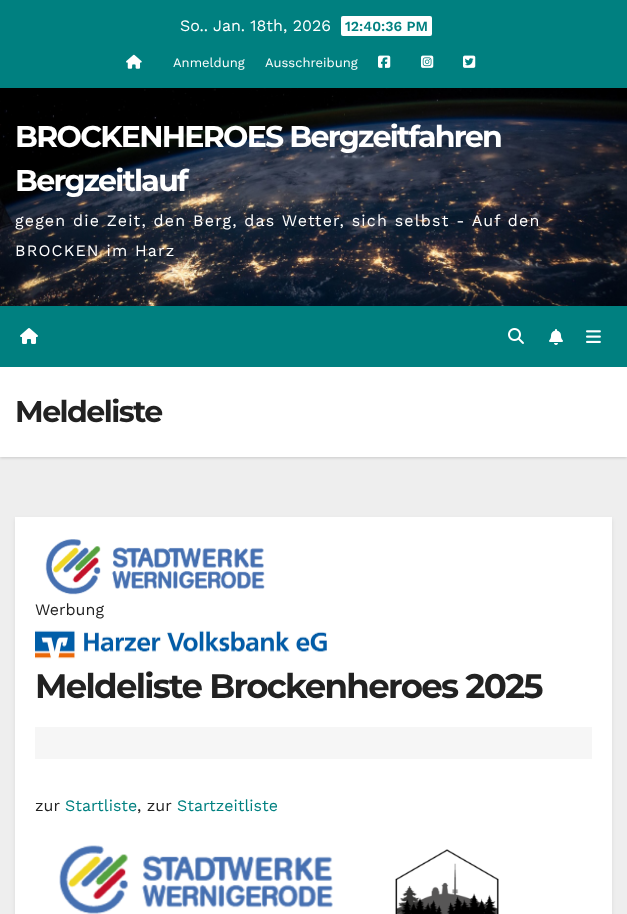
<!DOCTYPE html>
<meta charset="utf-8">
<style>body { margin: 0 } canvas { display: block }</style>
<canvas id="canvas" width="627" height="914"></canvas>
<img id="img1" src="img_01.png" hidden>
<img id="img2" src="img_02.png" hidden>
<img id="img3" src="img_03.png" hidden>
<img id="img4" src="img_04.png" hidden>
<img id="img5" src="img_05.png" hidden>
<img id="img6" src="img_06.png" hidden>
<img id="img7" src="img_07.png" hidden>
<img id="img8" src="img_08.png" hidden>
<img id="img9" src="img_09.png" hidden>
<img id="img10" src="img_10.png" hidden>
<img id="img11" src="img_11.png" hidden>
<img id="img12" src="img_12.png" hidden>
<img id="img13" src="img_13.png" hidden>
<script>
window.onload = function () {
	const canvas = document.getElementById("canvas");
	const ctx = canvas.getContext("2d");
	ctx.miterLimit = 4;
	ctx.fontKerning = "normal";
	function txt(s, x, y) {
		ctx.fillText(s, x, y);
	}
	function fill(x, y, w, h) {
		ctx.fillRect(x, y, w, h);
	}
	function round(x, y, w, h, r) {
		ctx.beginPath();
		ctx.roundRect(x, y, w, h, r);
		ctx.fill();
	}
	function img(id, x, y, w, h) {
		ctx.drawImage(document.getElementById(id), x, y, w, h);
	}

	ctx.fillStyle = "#EEEEEE";
	fill(0, 0, 627, 914);
	ctx.fillStyle = "#008080";
	fill(0, 0, 627, 88);
	ctx.fillStyle = "#FFFFFF";
	round(341, 16, 91, 20, 2);
	img("img1", 126, 54, 16, 15);
	img("img2", 378, 55, 13, 13);
	img("img3", 421, 55, 13, 13);
	img("img4", 463, 55, 13, 13);
	img("img5", 0, 88, 627, 218);
	ctx.fillStyle = "rgba(0, 0, 0, 0.15)";
	ctx.filter = "blur(1.5px)";
	ctx.beginPath();
	ctx.rect(0, 368, 627, 90);
	ctx.fill();
	ctx.filter = "none";
	ctx.fillStyle = "#008080";
	fill(0, 306, 627, 61);
	img("img6", 20, 328, 18, 16);
	img("img7", 508, 328, 16, 16);
	img("img8", 549, 329, 14, 16);
	img("img9", 586, 330, 15, 13);
	ctx.fillStyle = "#FFFFFF";
	fill(0, 367, 627, 90);
	ctx.fillStyle = "rgba(0, 0, 0, 0.08)";
	ctx.filter = "blur(2px)";
	ctx.beginPath();
	ctx.rect(15, 519, 597, 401);
	ctx.fill();
	ctx.filter = "none";
	ctx.fillStyle = "#FFFFFF";
	fill(15, 517, 597, 397);
	img("img10", 45, 539, 220, 56);
	img("img11", 35, 630, 292, 29);
	ctx.fillStyle = "#F6F6F6";
	fill(35, 727, 557, 32);
	img("img12", 59, 845, 274, 69);
	img("img13", 395, 849, 104, 65);
	ctx.font = "16px Work Sans";
	ctx.fillStyle = "#FFFFFF";
	txt("So.. Jan. 18th, 2026", 180, 31);
	ctx.font = "600 14px Work Sans";
	ctx.fillStyle = "#008080";
	txt("12:40:36 PM", 345, 31);
	ctx.font = "13px Work Sans";
	ctx.fillStyle = "#FFFFFF";
	txt("Anmeldung", 173, 67);
	txt("Ausschreibung", 265, 67);
	ctx.letterSpacing = "-1.7px";
	ctx.font = "bold 30px Montserrat";
	txt("BROCKENHEROES Bergzeitfahren", 15, 147);
	txt("Bergzeitlauf", 15, 191);
	ctx.letterSpacing = "1.2px";
	ctx.font = "16px Work Sans";
	txt("gegen die Zeit, den Berg, das Wetter, sich selbst - Auf den", 15, 226);
	txt("BROCKEN im Harz", 15, 256);
	ctx.letterSpacing = "-1.5px";
	ctx.font = "bold 30px Montserrat";
	ctx.fillStyle = "#222222";
	txt("Meldeliste", 15, 422);
	ctx.letterSpacing = "0px";
	ctx.font = "16px Work Sans";
	txt("Werbung", 35, 615);
	ctx.letterSpacing = "-1.7px";
	ctx.font = "bold 34px Montserrat";
	txt("Meldeliste Brockenheroes 2025", 35, 698);
	ctx.letterSpacing = "0px";
	ctx.font = "16px Work Sans";
	txt("zur", 35, 811);
	ctx.fillStyle = "#008080";
	txt("Startliste", 65, 811);
	ctx.fillStyle = "#222222";
	txt(", zur", 137, 811);
	ctx.fillStyle = "#008080";
	txt("Startzeitliste", 177, 811);
};
</script>
